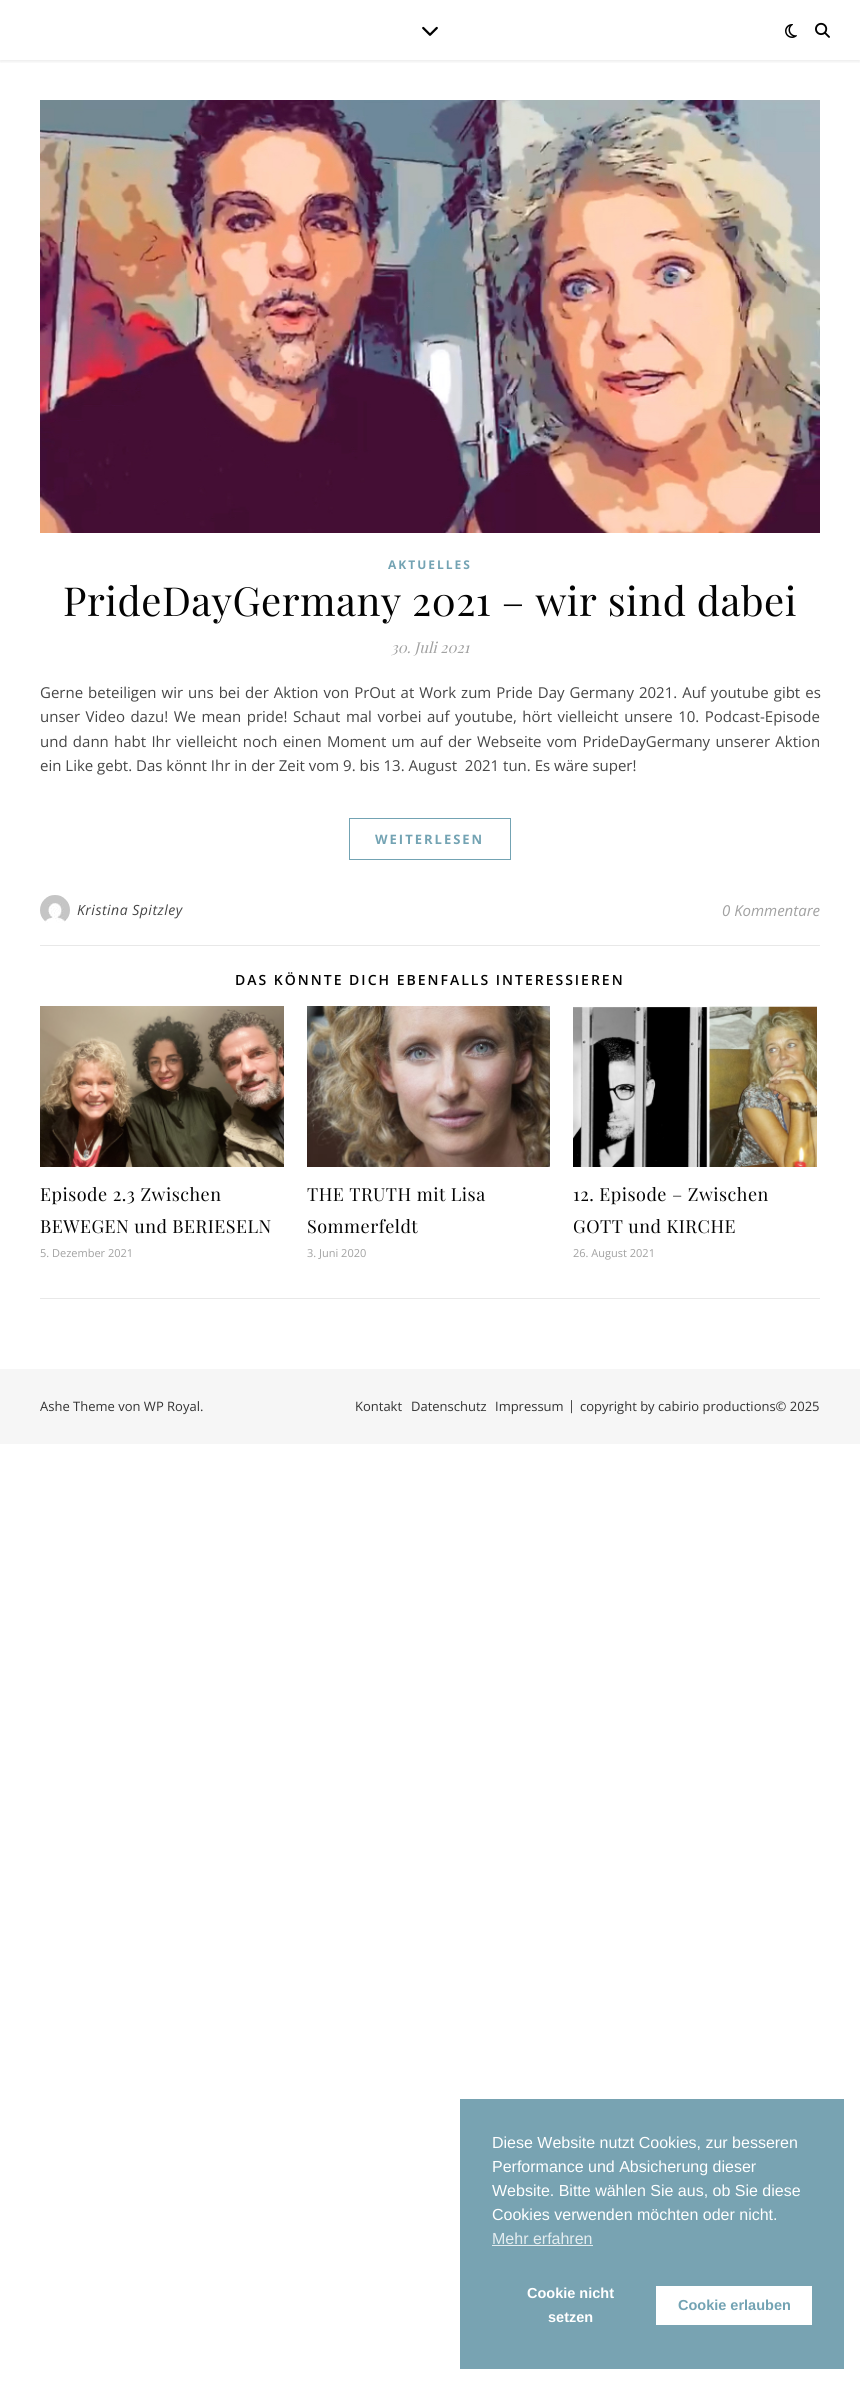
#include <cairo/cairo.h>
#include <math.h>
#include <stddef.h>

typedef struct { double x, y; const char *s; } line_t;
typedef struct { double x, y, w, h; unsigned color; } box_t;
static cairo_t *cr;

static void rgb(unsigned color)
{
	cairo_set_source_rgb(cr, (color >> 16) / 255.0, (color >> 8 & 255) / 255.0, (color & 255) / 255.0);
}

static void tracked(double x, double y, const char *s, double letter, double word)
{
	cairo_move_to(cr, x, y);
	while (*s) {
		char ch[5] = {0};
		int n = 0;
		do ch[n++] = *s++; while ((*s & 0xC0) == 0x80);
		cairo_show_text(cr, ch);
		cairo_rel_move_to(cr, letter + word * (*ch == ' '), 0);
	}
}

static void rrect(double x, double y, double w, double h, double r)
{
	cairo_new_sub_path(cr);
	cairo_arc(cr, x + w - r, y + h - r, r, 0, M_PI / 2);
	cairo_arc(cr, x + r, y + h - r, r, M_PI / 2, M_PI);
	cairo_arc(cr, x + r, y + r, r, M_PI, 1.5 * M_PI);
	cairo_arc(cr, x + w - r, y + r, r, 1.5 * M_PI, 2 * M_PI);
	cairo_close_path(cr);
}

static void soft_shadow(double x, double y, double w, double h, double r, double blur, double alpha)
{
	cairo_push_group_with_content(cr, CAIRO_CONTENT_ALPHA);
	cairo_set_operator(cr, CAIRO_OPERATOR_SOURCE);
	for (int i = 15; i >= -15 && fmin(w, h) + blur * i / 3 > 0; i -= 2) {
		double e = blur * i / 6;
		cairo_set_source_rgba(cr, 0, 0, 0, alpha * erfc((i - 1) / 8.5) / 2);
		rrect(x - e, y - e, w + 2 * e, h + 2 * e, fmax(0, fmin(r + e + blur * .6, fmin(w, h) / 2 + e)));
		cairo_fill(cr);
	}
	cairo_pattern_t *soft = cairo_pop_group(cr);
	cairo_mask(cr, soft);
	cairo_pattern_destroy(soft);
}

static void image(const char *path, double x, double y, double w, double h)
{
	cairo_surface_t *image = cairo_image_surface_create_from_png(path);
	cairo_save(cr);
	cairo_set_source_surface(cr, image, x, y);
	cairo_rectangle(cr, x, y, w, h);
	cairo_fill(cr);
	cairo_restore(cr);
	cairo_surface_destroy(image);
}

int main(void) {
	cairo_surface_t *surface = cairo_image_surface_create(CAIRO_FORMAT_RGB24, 860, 2385);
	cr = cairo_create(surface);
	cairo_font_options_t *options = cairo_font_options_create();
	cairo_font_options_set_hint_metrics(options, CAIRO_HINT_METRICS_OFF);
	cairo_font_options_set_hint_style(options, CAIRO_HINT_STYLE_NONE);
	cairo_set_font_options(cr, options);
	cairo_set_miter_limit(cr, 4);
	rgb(0xffffff);
	cairo_paint(cr);
	cairo_save(cr);
	cairo_rectangle(cr, 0, 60, 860, 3);
	cairo_clip(cr);
	rgb(0x000000);
	soft_shadow(0, 1, 860, 60, 0, 2.5, 0.1);
	cairo_restore(cr);
	image("img/1.png", 422, 26, 16, 10);
	image("img/2.png", 785, 24, 12, 14);
	image("img/3.png", 815, 22, 15, 16);
	image("img/4.png", 40, 100, 780, 433);
	cairo_rectangle(cr, 349.5, 818.5, 161, 41);
	rgb(0x73a3b3);
	cairo_set_line_width(cr, 1);
	cairo_stroke(cr);
	rgb(0xe8e8e8);
	cairo_rectangle(cr, 40, 945, 780, 1);
	cairo_fill(cr);
	image("img/5.png", 40, 895, 30, 28);
	cairo_rectangle(cr, 40, 1298, 780, 1);
	cairo_fill(cr);
	image("img/6.png", 40, 1006, 244, 161);
	image("img/7.png", 307, 1006, 243, 161);
	image("img/8.png", 573, 1006, 244, 161);
	{
		static const box_t items[] = {
			{0, 1369, 860, 75, 0xf6f6f6},
			{460, 2099, 384, 270, 0x78a3b2},
			{492, 2245, 101, 1, 0xe4edf0},
			{656, 2286, 156, 39, 0xffffff},
		};
		for (size_t i = 0; i < sizeof items / sizeof *items; i++) {
			rgb(items[i].color);
			cairo_rectangle(cr, items[i].x, items[i].y, items[i].w, items[i].h);
			cairo_fill(cr);
		}
	}
	cairo_select_font_face(cr, "Open Sans", CAIRO_FONT_SLANT_NORMAL, CAIRO_FONT_WEIGHT_BOLD);
	cairo_set_font_size(cr, 12);
	rgb(0x73a3b3);
	tracked(388, 569, "AKTUELLES", 2, 0);
	cairo_select_font_face(cr, "Playfair Display", CAIRO_FONT_SLANT_NORMAL, CAIRO_FONT_WEIGHT_NORMAL);
	cairo_set_font_size(cr, 40);
	rgb(0x030303);
	tracked(63, 616, "PrideDayGermany 2021 – wir sind dabei", 0.5, 0);
	cairo_select_font_face(cr, "Playfair Display", CAIRO_FONT_SLANT_ITALIC, CAIRO_FONT_WEIGHT_NORMAL);
	cairo_set_font_size(cr, 15);
	rgb(0xa1a1a1);
	cairo_move_to(cr, 391, 653);
	cairo_show_text(cr, "30. Juli 2021");
	cairo_select_font_face(cr, "Open Sans", CAIRO_FONT_SLANT_NORMAL, CAIRO_FONT_WEIGHT_NORMAL);
	rgb(0x464646);
	tracked(40, 698, "Gerne beteiligen wir uns bei der Aktion von PrOut at Work zum Pride Day Germany 2021. Auf youtube gibt es", 0, 1.1);
	tracked(40, 722, "unser Video dazu! We mean pride! Schaut mal vorbei auf youtube, hört vielleicht unsere 10. Podcast-Episode", 0, 1.6);
	tracked(40, 747, "und dann habt Ihr vielleicht noch einen Moment um auf der Webseite vom PrideDayGermany unserer Aktion", 0, 1.4);
	cairo_move_to(cr, 40, 771);
	cairo_show_text(cr, "ein Like gebt. Das könnt Ihr in der Zeit vom 9. bis 13. August  2021 tun. Es wäre super!");
	cairo_select_font_face(cr, "Open Sans", CAIRO_FONT_SLANT_NORMAL, CAIRO_FONT_WEIGHT_BOLD);
	cairo_set_font_size(cr, 13);
	rgb(0x73a3b3);
	tracked(375, 844, "WEITERLESEN", 2, 0);
	cairo_select_font_face(cr, "Open Sans", CAIRO_FONT_SLANT_ITALIC, CAIRO_FONT_WEIGHT_NORMAL);
	cairo_set_font_size(cr, 14);
	rgb(0x464646);
	tracked(77, 915, "Kristina Spitzley", 0.5, 0);
	cairo_set_font_size(cr, 15);
	rgb(0xa1a1a1);
	cairo_move_to(cr, 722, 916);
	cairo_show_text(cr, "0 Kommentare");
	cairo_select_font_face(cr, "Open Sans SemiBold", CAIRO_FONT_SLANT_NORMAL, CAIRO_FONT_WEIGHT_NORMAL);
	cairo_set_font_size(cr, 14);
	rgb(0x030303);
	tracked(235, 985, "DAS KÖNNTE DICH EBENFALLS INTERESSIEREN", 2, 0);
	cairo_select_font_face(cr, "Playfair Display", CAIRO_FONT_SLANT_NORMAL, CAIRO_FONT_WEIGHT_NORMAL);
	cairo_set_font_size(cr, 18);
	tracked(40, 1201, "Episode 2.3 Zwischen", 0.5, 0);
	tracked(40, 1233, "BEWEGEN und BERIESELN", 0.5, 0);
	cairo_select_font_face(cr, "Open Sans", CAIRO_FONT_SLANT_NORMAL, CAIRO_FONT_WEIGHT_NORMAL);
	cairo_set_font_size(cr, 11);
	rgb(0xa1a1a1);
	cairo_move_to(cr, 40, 1257);
	cairo_show_text(cr, "5. Dezember 2021");
	cairo_select_font_face(cr, "Playfair Display", CAIRO_FONT_SLANT_NORMAL, CAIRO_FONT_WEIGHT_NORMAL);
	cairo_set_font_size(cr, 18);
	rgb(0x030303);
	tracked(307, 1201, "THE TRUTH mit Lisa", 0.5, 0);
	tracked(307, 1233, "Sommerfeldt", 0.5, 0);
	cairo_select_font_face(cr, "Open Sans", CAIRO_FONT_SLANT_NORMAL, CAIRO_FONT_WEIGHT_NORMAL);
	cairo_set_font_size(cr, 11);
	rgb(0xa1a1a1);
	cairo_move_to(cr, 307, 1257);
	cairo_show_text(cr, "3. Juni 2020");
	cairo_select_font_face(cr, "Playfair Display", CAIRO_FONT_SLANT_NORMAL, CAIRO_FONT_WEIGHT_NORMAL);
	cairo_set_font_size(cr, 18);
	rgb(0x030303);
	tracked(573, 1201, "12. Episode – Zwischen", 0.5, 0);
	tracked(573, 1233, "GOTT und KIRCHE", 0.5, 0);
	cairo_select_font_face(cr, "Open Sans", CAIRO_FONT_SLANT_NORMAL, CAIRO_FONT_WEIGHT_NORMAL);
	cairo_set_font_size(cr, 11);
	rgb(0xa1a1a1);
	cairo_move_to(cr, 573, 1257);
	cairo_show_text(cr, "26. August 2021");
	cairo_set_font_size(cr, 13);
	rgb(0x333333);
	{
		static const line_t items[] = {
			{40, 1411, "Ashe Theme von WP Royal."},
			{355, 1411, "Kontakt"},
			{411, 1411, "Datenschutz"},
			{495, 1411, "Impressum"},
			{568, 1410, "|"},
			{580, 1411, "copyright by cabirio productions© 2025"},
		};
		for (size_t i = 0; i < sizeof items / sizeof *items; i++) {
			cairo_move_to(cr, items[i].x, items[i].y);
			cairo_show_text(cr, items[i].s);
		}
	}
	cairo_select_font_face(cr, "Liberation Sans", CAIRO_FONT_SLANT_NORMAL, CAIRO_FONT_WEIGHT_NORMAL);
	cairo_set_font_size(cr, 16);
	rgb(0xffffff);
	{
		static const line_t items[] = {
			{492, 2148, "Diese Website nutzt Cookies, zur besseren"},
			{492, 2172, "Performance und Absicherung dieser"},
			{492, 2196, "Website. Bitte wählen Sie aus, ob Sie diese"},
			{492, 2220, "Cookies verwenden möchten oder nicht."},
		};
		for (size_t i = 0; i < sizeof items / sizeof *items; i++) {
			cairo_move_to(cr, items[i].x, items[i].y);
			cairo_show_text(cr, items[i].s);
		}
	}
	rgb(0xe4edf0);
	cairo_move_to(cr, 492, 2244);
	cairo_show_text(cr, "Mehr erfahren");
	cairo_select_font_face(cr, "Liberation Sans", CAIRO_FONT_SLANT_NORMAL, CAIRO_FONT_WEIGHT_BOLD);
	cairo_set_font_size(cr, 14.5);
	rgb(0xffffff);
	cairo_move_to(cr, 527, 2298);
	cairo_show_text(cr, "Cookie nicht");
	cairo_move_to(cr, 548, 2322);
	cairo_show_text(cr, "setzen");
	rgb(0x73a3b3);
	cairo_move_to(cr, 678, 2310);
	cairo_show_text(cr, "Cookie erlauben");
	cairo_surface_write_to_png(surface, "page.png");
	cairo_font_options_destroy(options);
	cairo_destroy(cr);
	cairo_surface_destroy(surface);
	return 0;
}
